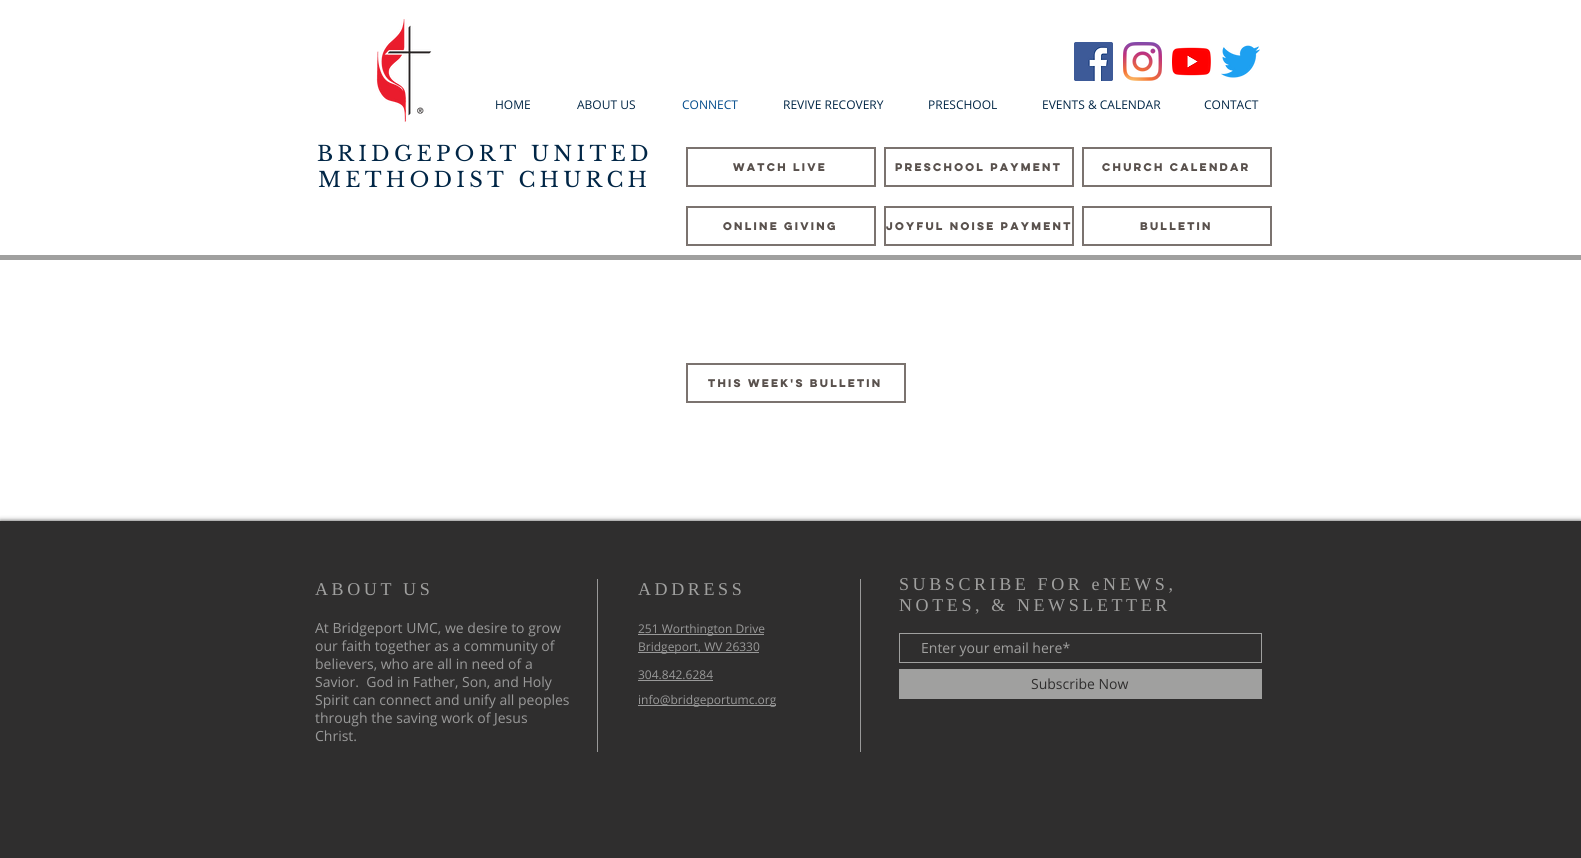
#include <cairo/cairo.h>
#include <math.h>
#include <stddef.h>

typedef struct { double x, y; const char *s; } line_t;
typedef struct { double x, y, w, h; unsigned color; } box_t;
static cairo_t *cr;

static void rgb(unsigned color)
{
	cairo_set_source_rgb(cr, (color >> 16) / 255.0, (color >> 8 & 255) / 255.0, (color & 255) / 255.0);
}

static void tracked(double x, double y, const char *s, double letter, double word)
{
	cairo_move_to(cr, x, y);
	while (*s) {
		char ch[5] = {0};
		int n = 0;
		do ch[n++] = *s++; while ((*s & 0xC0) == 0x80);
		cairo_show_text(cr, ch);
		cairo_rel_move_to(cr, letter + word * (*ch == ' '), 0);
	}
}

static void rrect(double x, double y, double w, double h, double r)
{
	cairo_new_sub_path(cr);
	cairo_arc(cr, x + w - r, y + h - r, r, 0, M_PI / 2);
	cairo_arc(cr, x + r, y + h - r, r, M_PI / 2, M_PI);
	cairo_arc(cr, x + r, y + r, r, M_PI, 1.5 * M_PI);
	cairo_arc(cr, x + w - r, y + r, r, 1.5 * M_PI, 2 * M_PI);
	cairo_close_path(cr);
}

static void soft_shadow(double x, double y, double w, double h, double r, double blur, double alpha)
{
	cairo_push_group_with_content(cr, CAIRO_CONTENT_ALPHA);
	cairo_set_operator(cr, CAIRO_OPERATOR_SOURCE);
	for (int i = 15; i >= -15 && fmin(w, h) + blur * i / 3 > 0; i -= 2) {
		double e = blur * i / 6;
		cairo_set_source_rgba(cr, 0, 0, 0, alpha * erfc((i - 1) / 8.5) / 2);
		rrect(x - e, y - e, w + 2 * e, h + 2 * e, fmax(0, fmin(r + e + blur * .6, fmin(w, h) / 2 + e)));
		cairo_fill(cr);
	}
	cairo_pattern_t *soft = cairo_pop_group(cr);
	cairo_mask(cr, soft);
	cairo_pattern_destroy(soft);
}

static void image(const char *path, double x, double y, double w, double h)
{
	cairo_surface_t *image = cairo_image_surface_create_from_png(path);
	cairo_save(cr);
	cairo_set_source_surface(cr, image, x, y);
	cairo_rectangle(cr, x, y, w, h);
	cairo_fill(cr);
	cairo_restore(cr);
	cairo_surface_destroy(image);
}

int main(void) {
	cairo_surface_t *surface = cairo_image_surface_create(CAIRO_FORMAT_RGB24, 1581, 858);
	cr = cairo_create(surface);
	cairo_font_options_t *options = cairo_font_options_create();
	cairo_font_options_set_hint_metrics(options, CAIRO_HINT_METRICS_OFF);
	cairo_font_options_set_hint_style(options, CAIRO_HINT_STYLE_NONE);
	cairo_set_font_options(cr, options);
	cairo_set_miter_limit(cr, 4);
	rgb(0xffffff);
	cairo_paint(cr);
	image("img/1.png", 376, 19, 56, 103);
	image("img/2.png", 1074, 42, 39, 39);
	image("img/3.png", 1123, 42, 39, 39);
	image("img/4.png", 1172, 47, 39, 29);
	image("img/5.png", 1221, 45, 39, 33);
	cairo_rectangle(cr, 687, 148, 188, 38);
	rgb(0x7b736f);
	cairo_stroke(cr);
	cairo_rectangle(cr, 885, 148, 188, 38);
	cairo_stroke(cr);
	cairo_rectangle(cr, 1083, 148, 188, 38);
	cairo_stroke(cr);
	cairo_rectangle(cr, 687, 207, 188, 38);
	cairo_stroke(cr);
	cairo_rectangle(cr, 885, 207, 188, 38);
	cairo_stroke(cr);
	cairo_rectangle(cr, 1083, 207, 188, 38);
	cairo_stroke(cr);
	rgb(0xa0a09f);
	cairo_rectangle(cr, 0, 255, 1581, 5);
	cairo_fill(cr);
	cairo_rectangle(cr, 687, 364, 218, 38);
	rgb(0x7b736f);
	cairo_stroke(cr);
	rgb(0x000000);
	soft_shadow(0, 521, 1581, 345, 0, 2.5, 0.7);
	{
		static const box_t items[] = {
			{0, 521, 1581, 337, 0x2f2e2e},
			{597, 579, 1, 173, 0x999999},
			{860, 579, 1, 173, 0x999999},
		};
		for (size_t i = 0; i < sizeof items / sizeof *items; i++) {
			rgb(items[i].color);
			cairo_rectangle(cr, items[i].x, items[i].y, items[i].w, items[i].h);
			cairo_fill(cr);
		}
	}
	cairo_rectangle(cr, 899.5, 633.5, 362, 29);
	rgb(0xa0a09f);
	cairo_set_line_width(cr, 1);
	cairo_stroke(cr);
	{
		static const box_t items[] = {
			{899, 669, 363, 30, 0xa0a09f},
			{638, 634, 126, 1, 0x999999},
			{638, 652, 121, 1, 0x999999},
			{638, 680, 75, 1, 0x999999},
			{638, 705, 138, 1, 0x999999},
		};
		for (size_t i = 0; i < sizeof items / sizeof *items; i++) {
			rgb(items[i].color);
			cairo_rectangle(cr, items[i].x, items[i].y, items[i].w, items[i].h);
			cairo_fill(cr);
		}
	}
	cairo_select_font_face(cr, "Open Sans", CAIRO_FONT_SLANT_NORMAL, CAIRO_FONT_WEIGHT_NORMAL);
	cairo_set_font_size(cr, 12);
	rgb(0x012646);
	cairo_move_to(cr, 495, 109);
	cairo_show_text(cr, "HOME");
	cairo_move_to(cr, 577, 109);
	cairo_show_text(cr, "ABOUT US");
	rgb(0x034c8c);
	cairo_move_to(cr, 682, 109);
	cairo_show_text(cr, "CONNECT");
	rgb(0x012646);
	{
		static const line_t items[] = {
			{783, 109, "REVIVE RECOVERY"},
			{928, 109, "PRESCHOOL"},
			{1042, 109, "EVENTS & CALENDAR"},
			{1204, 109, "CONTACT"},
		};
		for (size_t i = 0; i < sizeof items / sizeof *items; i++) {
			cairo_move_to(cr, items[i].x, items[i].y);
			cairo_show_text(cr, items[i].s);
		}
	}
	cairo_select_font_face(cr, "Libre Baskerville", CAIRO_FONT_SLANT_NORMAL, CAIRO_FONT_WEIGHT_NORMAL);
	cairo_set_font_size(cr, 21);
	tracked(317, 161, "BRIDGEPORT UNITED", 4.25, 0);
	tracked(318, 187, "METHODIST CHURCH", 4.25, 0);
	cairo_select_font_face(cr, "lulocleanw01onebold", CAIRO_FONT_SLANT_NORMAL, CAIRO_FONT_WEIGHT_BOLD);
	cairo_set_font_size(cr, 10);
	rgb(0x59514d);
	{
		static const line_t items[] = {
			{733, 171, "WATCH LIVE"},
			{895, 171, "PreSchool Payment"},
			{1102, 171, "CHURCH CALENDAR"},
			{723, 230, "Online Giving"},
			{886, 230, "Joyful Noise Payment"},
			{1140, 230, "Bulletin"},
			{708, 387, "This Week's Bulletin"},
		};
		for (size_t i = 0; i < sizeof items / sizeof *items; i++) {
			cairo_move_to(cr, items[i].x, items[i].y);
			cairo_show_text(cr, items[i].s);
		}
	}
	cairo_select_font_face(cr, "Liberation Serif", CAIRO_FONT_SLANT_NORMAL, CAIRO_FONT_WEIGHT_NORMAL);
	cairo_set_font_size(cr, 18);
	rgb(0xa0a09f);
	{
		static const line_t items[] = {
			{315, 595, "ABOUT US"},
			{638, 595, "ADDRESS"},
			{899, 590, "SUBSCRIBE FOR eNEWS,"},
			{899, 611, "NOTES, & NEWSLETTER"},
		};
		for (size_t i = 0; i < sizeof items / sizeof *items; i++) {
			tracked(items[i].x, items[i].y, items[i].s, 3.6, 0);
		}
	}
	cairo_select_font_face(cr, "Open Sans", CAIRO_FONT_SLANT_NORMAL, CAIRO_FONT_WEIGHT_NORMAL);
	cairo_set_font_size(cr, 14);
	cairo_move_to(cr, 921, 653);
	cairo_show_text(cr, "Enter your email here*");
	rgb(0x2f2e2e);
	cairo_move_to(cr, 1031, 689);
	cairo_show_text(cr, "Subscribe Now");
	rgb(0x999999);
	{
		static const line_t items[] = {
			{315, 633, "At Bridgeport UMC, we desire to grow"},
			{315, 651, "our faith together as a community of"},
			{315, 669, "believers, who are all in need of a"},
			{315, 687, "Savior.  God in Father, Son, and Holy"},
			{315, 705, "Spirit can connect and unify all peoples"},
			{315, 723, "through the saving work of Jesus"},
			{315, 741, "Christ."},
		};
		for (size_t i = 0; i < sizeof items / sizeof *items; i++) {
			cairo_move_to(cr, items[i].x, items[i].y);
			cairo_show_text(cr, items[i].s);
		}
	}
	cairo_set_font_size(cr, 12);
	{
		static const line_t items[] = {
			{638, 633, "251 Worthington Drive"},
			{638, 651, "Bridgeport, WV 26330"},
			{638, 679, "304.842.6284"},
			{638, 704, "info@bridgeportumc.org"},
		};
		for (size_t i = 0; i < sizeof items / sizeof *items; i++) {
			cairo_move_to(cr, items[i].x, items[i].y);
			cairo_show_text(cr, items[i].s);
		}
	}
	cairo_surface_write_to_png(surface, "page.png");
	cairo_font_options_destroy(options);
	cairo_destroy(cr);
	cairo_surface_destroy(surface);
	return 0;
}
